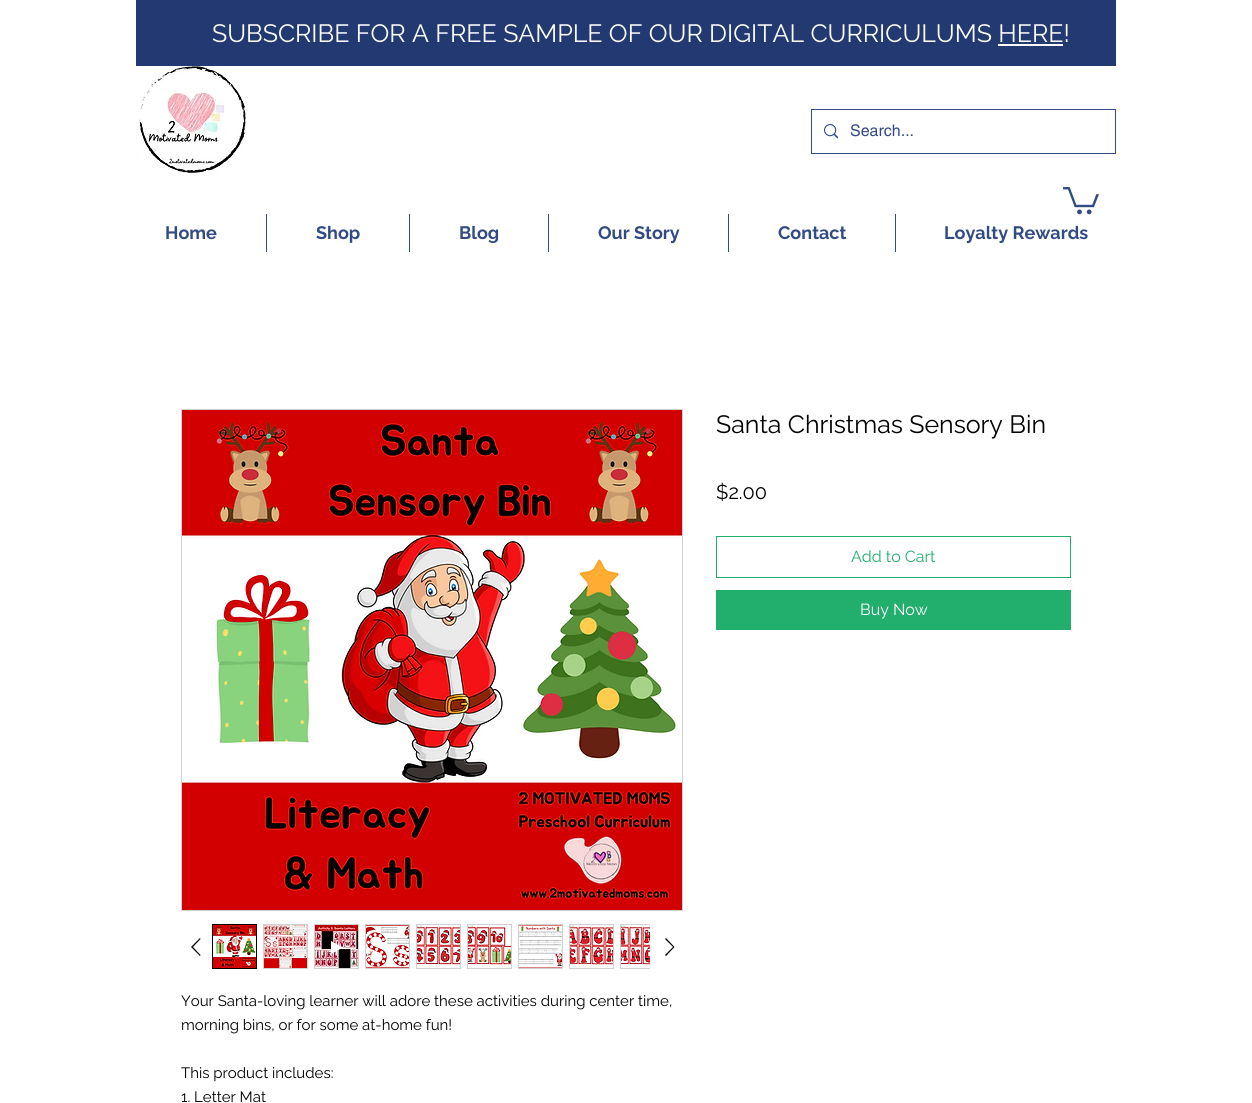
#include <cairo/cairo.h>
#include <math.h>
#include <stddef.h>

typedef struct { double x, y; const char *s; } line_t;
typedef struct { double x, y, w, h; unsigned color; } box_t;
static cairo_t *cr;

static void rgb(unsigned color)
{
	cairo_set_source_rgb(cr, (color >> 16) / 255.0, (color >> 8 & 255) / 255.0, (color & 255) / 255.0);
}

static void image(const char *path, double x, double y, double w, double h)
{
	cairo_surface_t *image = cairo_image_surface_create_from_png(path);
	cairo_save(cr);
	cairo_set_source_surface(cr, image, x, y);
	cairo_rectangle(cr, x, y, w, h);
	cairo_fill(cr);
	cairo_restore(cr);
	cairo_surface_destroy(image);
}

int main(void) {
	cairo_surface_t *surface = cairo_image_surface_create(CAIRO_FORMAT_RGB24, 1252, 1103);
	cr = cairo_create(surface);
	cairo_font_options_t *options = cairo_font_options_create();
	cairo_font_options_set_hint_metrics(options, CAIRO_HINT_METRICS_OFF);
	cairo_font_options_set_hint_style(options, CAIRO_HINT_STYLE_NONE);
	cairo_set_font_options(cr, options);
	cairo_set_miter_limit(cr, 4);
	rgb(0xffffff);
	cairo_paint(cr);
	rgb(0x223a71);
	cairo_rectangle(cr, 136, 0, 980, 66);
	cairo_fill(cr);
	rgb(0xffffff);
	cairo_rectangle(cr, 998, 44, 65, 2);
	cairo_fill(cr);
	image("img/1.png", 136, 66, 112, 107);
	cairo_rectangle(cr, 811.5, 109.5, 304, 44);
	rgb(0x324b85);
	cairo_set_line_width(cr, 1);
	cairo_stroke(cr);
	image("img/2.png", 824, 124, 14, 15);
	image("img/3.png", 1063, 187, 36, 28);
	{
		static const box_t items[] = {
			{266, 214, 1, 38, 0x324b85},
			{409, 214, 1, 38, 0x324b85},
			{548, 214, 1, 38, 0x324b85},
			{728, 214, 1, 38, 0x324b85},
			{895, 214, 1, 38, 0x324b85},
		};
		for (size_t i = 0; i < sizeof items / sizeof *items; i++) {
			rgb(items[i].color);
			cairo_rectangle(cr, items[i].x, items[i].y, items[i].w, items[i].h);
			cairo_fill(cr);
		}
	}
	cairo_rectangle(cr, 716.5, 536.5, 354, 41);
	rgb(0x22ae6d);
	cairo_stroke(cr);
	cairo_rectangle(cr, 716, 590, 355, 40);
	cairo_fill(cr);
	cairo_rectangle(cr, 181.5, 409.5, 501, 501);
	rgb(0xd1d1d1);
	cairo_stroke(cr);
	image("img/4.png", 182, 410, 500, 500);
	rgb(0x000000);
	cairo_set_fill_rule(cr, CAIRO_FILL_RULE_EVEN_ODD);
	cairo_new_path(cr);
	cairo_move_to(cr, 200, 938);
	cairo_line_to(cr, 200.5, 939);
	cairo_line_to(cr, 193, 947);
	cairo_line_to(cr, 200.5, 955);
	cairo_line_to(cr, 200, 956);
	cairo_line_to(cr, 191, 947);
	cairo_close_path(cr);
	cairo_fill(cr);
	cairo_rectangle(cr, 212.5, 924.5, 44, 44);
	cairo_stroke(cr);
	image("img/5.png", 213, 925, 43, 43);
	cairo_rectangle(cr, 263.5, 924.5, 44, 44);
	rgb(0xd1d1d1);
	cairo_stroke(cr);
	image("img/6.png", 264, 925, 43, 43);
	cairo_rectangle(cr, 314.5, 924.5, 44, 44);
	cairo_stroke(cr);
	image("img/7.png", 315, 925, 43, 43);
	rgb(0xffffff);
	cairo_set_fill_rule(cr, CAIRO_FILL_RULE_WINDING);
	cairo_new_path(cr);
	cairo_move_to(cr, 331, 941);
	cairo_line_to(cr, 331, 954);
	cairo_line_to(cr, 343, 947.5);
	cairo_close_path(cr);
	cairo_fill(cr);
	cairo_rectangle(cr, 365.5, 924.5, 44, 44);
	rgb(0xd1d1d1);
	cairo_stroke(cr);
	image("img/8.png", 366, 925, 43, 43);
	cairo_rectangle(cr, 416.5, 924.5, 44, 44);
	cairo_stroke(cr);
	image("img/9.png", 417, 925, 43, 40);
	cairo_rectangle(cr, 467.5, 924.5, 44, 44);
	cairo_stroke(cr);
	image("img/10.png", 468, 925, 43, 40);
	cairo_rectangle(cr, 518.5, 924.5, 44, 44);
	cairo_stroke(cr);
	image("img/11.png", 519, 925, 43, 43);
	cairo_rectangle(cr, 569.5, 924.5, 44, 44);
	cairo_stroke(cr);
	image("img/12.png", 570, 925, 43, 40);
	cairo_save(cr);
	cairo_rectangle(cr, 208, 920, 442, 53);
	cairo_clip(cr);
	cairo_rectangle(cr, 620.5, 924.5, 44, 44);
	cairo_stroke(cr);
	cairo_restore(cr);
	image("img/13.png", 621, 925, 29, 40);
	rgb(0x000000);
	cairo_set_fill_rule(cr, CAIRO_FILL_RULE_EVEN_ODD);
	cairo_new_path(cr);
	cairo_move_to(cr, 666, 938);
	cairo_line_to(cr, 674.5, 947);
	cairo_line_to(cr, 666, 956);
	cairo_line_to(cr, 665, 955);
	cairo_line_to(cr, 673, 947);
	cairo_line_to(cr, 665, 939);
	cairo_close_path(cr);
	cairo_fill(cr);
	cairo_select_font_face(cr, "Raleway", CAIRO_FONT_SLANT_NORMAL, CAIRO_FONT_WEIGHT_NORMAL);
	cairo_set_font_size(cr, 25);
	rgb(0xffffff);
	cairo_move_to(cr, 212, 42);
	cairo_show_text(cr, "SUBSCRIBE FOR A FREE SAMPLE OF OUR DIGITAL CURRICULUMS HERE!");
	cairo_select_font_face(cr, "helvetica", CAIRO_FONT_SLANT_NORMAL, CAIRO_FONT_WEIGHT_NORMAL);
	cairo_set_font_size(cr, 16);
	rgb(0x324b85);
	cairo_move_to(cr, 850, 136);
	cairo_show_text(cr, "Search...");
	cairo_select_font_face(cr, "Raleway", CAIRO_FONT_SLANT_NORMAL, CAIRO_FONT_WEIGHT_BOLD);
	cairo_set_font_size(cr, 18);
	{
		static const line_t items[] = {
			{165, 239, "Home"},
			{316, 239, "Shop"},
			{459, 239, "Blog"},
			{598, 239, "Our Story"},
			{778, 239, "Contact"},
			{944, 239, "Loyalty Rewards"},
		};
		for (size_t i = 0; i < sizeof items / sizeof *items; i++) {
			cairo_move_to(cr, items[i].x, items[i].y);
			cairo_show_text(cr, items[i].s);
		}
	}
	cairo_select_font_face(cr, "Raleway", CAIRO_FONT_SLANT_NORMAL, CAIRO_FONT_WEIGHT_NORMAL);
	cairo_set_font_size(cr, 25);
	rgb(0x000000);
	cairo_move_to(cr, 716, 433);
	cairo_show_text(cr, "Santa Christmas Sensory Bin");
	cairo_set_font_size(cr, 20);
	cairo_move_to(cr, 716, 499);
	cairo_show_text(cr, "$2.00");
	cairo_set_font_size(cr, 16);
	rgb(0x22ae6d);
	cairo_move_to(cr, 851, 562);
	cairo_show_text(cr, "Add to Cart");
	rgb(0xffffff);
	cairo_move_to(cr, 860, 615);
	cairo_show_text(cr, "Buy Now");
	cairo_set_font_size(cr, 15);
	rgb(0x000000);
	{
		static const line_t items[] = {
			{181, 1006, "Your Santa-loving learner will adore these activities during center time,"},
			{181, 1030, "morning bins, or for some at-home fun!"},
			{181, 1078, "This product includes:"},
			{181, 1102, "1. Letter Mat"},
		};
		for (size_t i = 0; i < sizeof items / sizeof *items; i++) {
			cairo_move_to(cr, items[i].x, items[i].y);
			cairo_show_text(cr, items[i].s);
		}
	}
	cairo_surface_write_to_png(surface, "page.png");
	cairo_font_options_destroy(options);
	cairo_destroy(cr);
	cairo_surface_destroy(surface);
	return 0;
}
